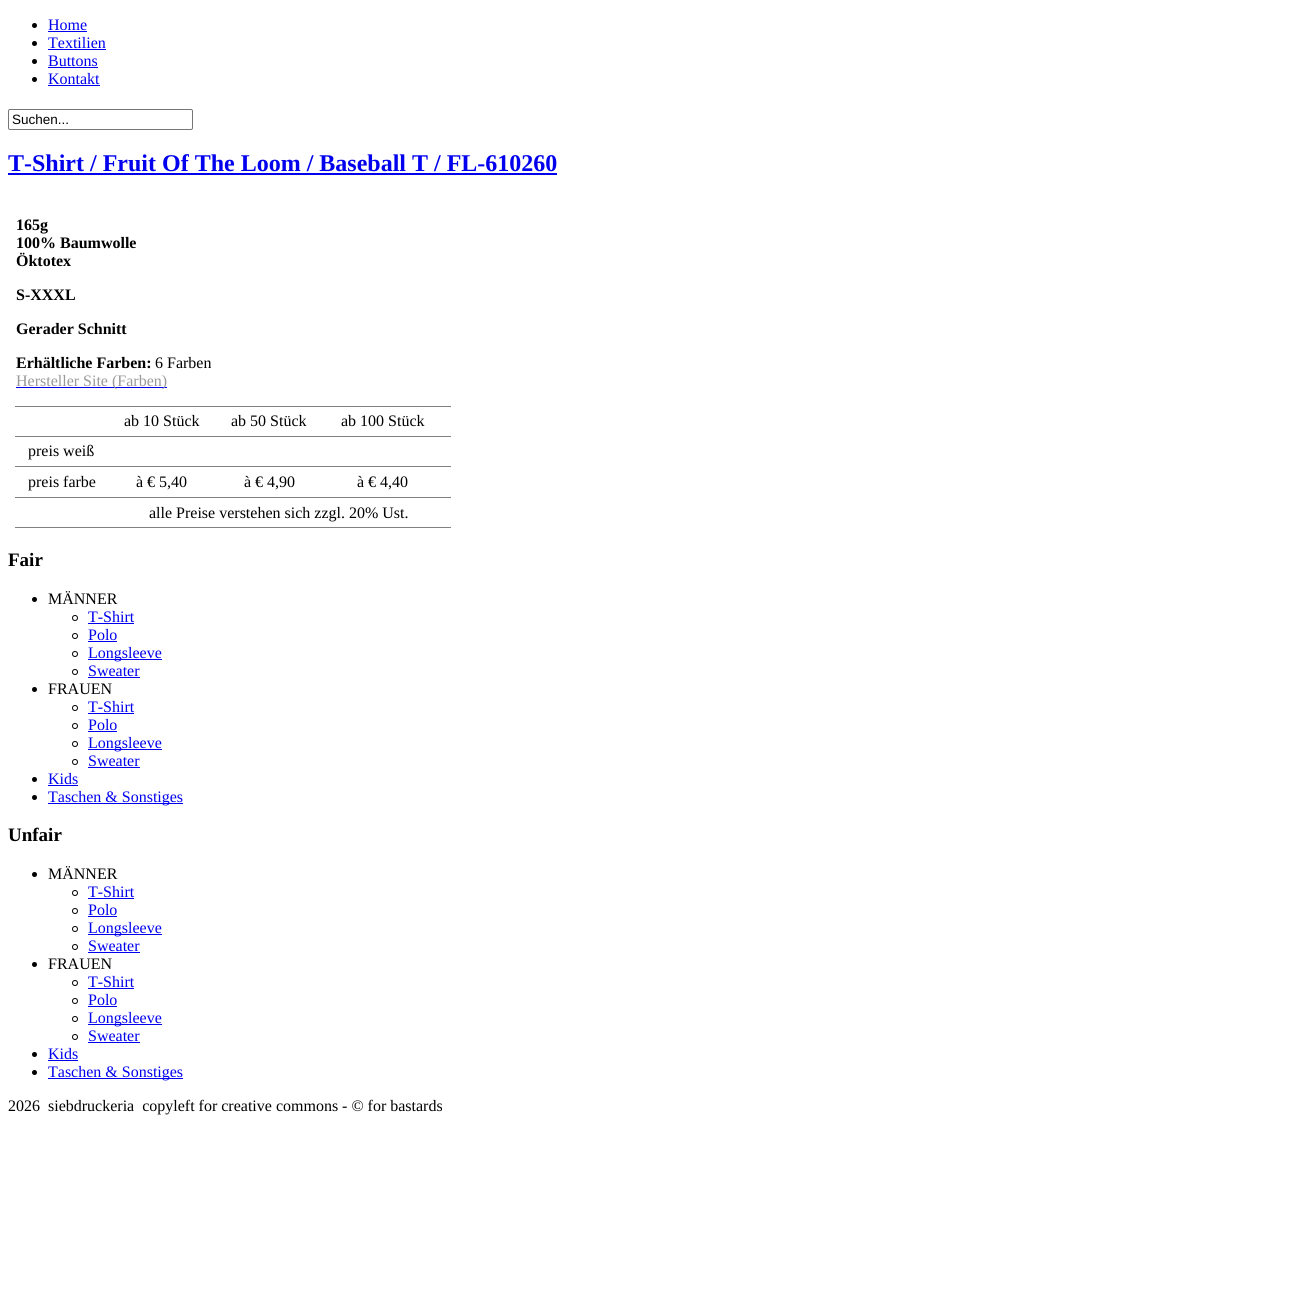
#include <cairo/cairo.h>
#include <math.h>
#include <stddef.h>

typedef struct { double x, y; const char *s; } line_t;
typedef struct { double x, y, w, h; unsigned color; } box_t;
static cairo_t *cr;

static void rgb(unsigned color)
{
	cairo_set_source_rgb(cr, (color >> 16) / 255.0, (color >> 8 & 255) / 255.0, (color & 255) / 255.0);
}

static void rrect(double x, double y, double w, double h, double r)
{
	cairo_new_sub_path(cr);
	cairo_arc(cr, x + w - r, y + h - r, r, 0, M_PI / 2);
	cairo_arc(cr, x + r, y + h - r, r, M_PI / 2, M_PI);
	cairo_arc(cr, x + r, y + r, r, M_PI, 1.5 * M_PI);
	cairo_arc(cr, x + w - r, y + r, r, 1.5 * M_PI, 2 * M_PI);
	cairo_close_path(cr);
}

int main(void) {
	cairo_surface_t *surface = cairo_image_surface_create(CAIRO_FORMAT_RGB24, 1304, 1302);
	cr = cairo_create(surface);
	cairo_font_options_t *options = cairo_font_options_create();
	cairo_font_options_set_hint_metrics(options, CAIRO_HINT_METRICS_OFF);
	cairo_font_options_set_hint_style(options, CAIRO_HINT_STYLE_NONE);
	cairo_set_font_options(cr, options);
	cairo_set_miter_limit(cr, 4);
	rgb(0xffffff);
	cairo_paint(cr);
	rgb(0x000000);
	cairo_arc(cr, 34.5, 25.5, 2.5, 0, 2 * M_PI);
	cairo_fill(cr);
	rgb(0x0000ee);
	cairo_rectangle(cr, 48, 31, 39, 1);
	cairo_fill(cr);
	rgb(0x000000);
	cairo_arc(cr, 34.5, 43.5, 2.5, 0, 2 * M_PI);
	cairo_fill(cr);
	rgb(0x0000ee);
	cairo_rectangle(cr, 48, 49, 58, 1);
	cairo_fill(cr);
	rgb(0x000000);
	cairo_arc(cr, 34.5, 61.5, 2.5, 0, 2 * M_PI);
	cairo_fill(cr);
	rgb(0x0000ee);
	cairo_rectangle(cr, 48, 67, 50, 1);
	cairo_fill(cr);
	rgb(0x000000);
	cairo_arc(cr, 34.5, 79.5, 2.5, 0, 2 * M_PI);
	cairo_fill(cr);
	rgb(0x0000ee);
	cairo_rectangle(cr, 48, 85, 52, 1);
	cairo_fill(cr);
	rrect(8.5, 109.5, 184, 20, 1.5);
	rgb(0x767676);
	cairo_set_line_width(cr, 1);
	cairo_stroke(cr);
	{
		static const box_t items[] = {
			{8, 173, 549, 2, 0x0000ee},
			{16, 387, 151, 1, 0x0000ee},
			{15, 406, 436, 1, 0x808080},
			{15, 436, 436, 1, 0x808080},
			{15, 466, 436, 1, 0x808080},
			{15, 497, 436, 1, 0x808080},
			{15, 527, 436, 1, 0x808080},
		};
		for (size_t i = 0; i < sizeof items / sizeof *items; i++) {
			rgb(items[i].color);
			cairo_rectangle(cr, items[i].x, items[i].y, items[i].w, items[i].h);
			cairo_fill(cr);
		}
	}
	rgb(0x000000);
	cairo_arc(cr, 34.5, 599.5, 2.5, 0, 2 * M_PI);
	cairo_fill(cr);
	cairo_arc(cr, 75, 618, 2.5, 0, 2 * M_PI);
	cairo_stroke(cr);
	rgb(0x0000ee);
	cairo_rectangle(cr, 88, 623, 46, 1);
	cairo_fill(cr);
	cairo_arc(cr, 75, 636, 2.5, 0, 2 * M_PI);
	rgb(0x000000);
	cairo_stroke(cr);
	rgb(0x0000ee);
	cairo_rectangle(cr, 88, 641, 29, 1);
	cairo_fill(cr);
	cairo_arc(cr, 75, 654, 2.5, 0, 2 * M_PI);
	rgb(0x000000);
	cairo_stroke(cr);
	rgb(0x0000ee);
	cairo_rectangle(cr, 88, 659, 74, 1);
	cairo_fill(cr);
	cairo_arc(cr, 75, 672, 2.5, 0, 2 * M_PI);
	rgb(0x000000);
	cairo_stroke(cr);
	rgb(0x0000ee);
	cairo_rectangle(cr, 88, 677, 52, 1);
	cairo_fill(cr);
	rgb(0x000000);
	cairo_arc(cr, 34.5, 689.5, 2.5, 0, 2 * M_PI);
	cairo_fill(cr);
	cairo_arc(cr, 75, 708, 2.5, 0, 2 * M_PI);
	cairo_stroke(cr);
	rgb(0x0000ee);
	cairo_rectangle(cr, 88, 713, 46, 1);
	cairo_fill(cr);
	cairo_arc(cr, 75, 726, 2.5, 0, 2 * M_PI);
	rgb(0x000000);
	cairo_stroke(cr);
	rgb(0x0000ee);
	cairo_rectangle(cr, 88, 731, 29, 1);
	cairo_fill(cr);
	cairo_arc(cr, 75, 744, 2.5, 0, 2 * M_PI);
	rgb(0x000000);
	cairo_stroke(cr);
	rgb(0x0000ee);
	cairo_rectangle(cr, 88, 749, 74, 1);
	cairo_fill(cr);
	cairo_arc(cr, 75, 762, 2.5, 0, 2 * M_PI);
	rgb(0x000000);
	cairo_stroke(cr);
	rgb(0x0000ee);
	cairo_rectangle(cr, 88, 767, 52, 1);
	cairo_fill(cr);
	rgb(0x000000);
	cairo_arc(cr, 34.5, 779.5, 2.5, 0, 2 * M_PI);
	cairo_fill(cr);
	rgb(0x0000ee);
	cairo_rectangle(cr, 48, 785, 30, 1);
	cairo_fill(cr);
	rgb(0x000000);
	cairo_arc(cr, 34.5, 797.5, 2.5, 0, 2 * M_PI);
	cairo_fill(cr);
	rgb(0x0000ee);
	cairo_rectangle(cr, 48, 803, 135, 1);
	cairo_fill(cr);
	rgb(0x000000);
	cairo_arc(cr, 34.5, 874.5, 2.5, 0, 2 * M_PI);
	cairo_fill(cr);
	cairo_arc(cr, 75, 893, 2.5, 0, 2 * M_PI);
	cairo_stroke(cr);
	rgb(0x0000ee);
	cairo_rectangle(cr, 88, 898, 46, 1);
	cairo_fill(cr);
	cairo_arc(cr, 75, 911, 2.5, 0, 2 * M_PI);
	rgb(0x000000);
	cairo_stroke(cr);
	rgb(0x0000ee);
	cairo_rectangle(cr, 88, 916, 29, 1);
	cairo_fill(cr);
	cairo_arc(cr, 75, 929, 2.5, 0, 2 * M_PI);
	rgb(0x000000);
	cairo_stroke(cr);
	rgb(0x0000ee);
	cairo_rectangle(cr, 88, 934, 74, 1);
	cairo_fill(cr);
	cairo_arc(cr, 75, 947, 2.5, 0, 2 * M_PI);
	rgb(0x000000);
	cairo_stroke(cr);
	rgb(0x0000ee);
	cairo_rectangle(cr, 88, 952, 52, 1);
	cairo_fill(cr);
	rgb(0x000000);
	cairo_arc(cr, 34.5, 964.5, 2.5, 0, 2 * M_PI);
	cairo_fill(cr);
	cairo_arc(cr, 75, 983, 2.5, 0, 2 * M_PI);
	cairo_stroke(cr);
	rgb(0x0000ee);
	cairo_rectangle(cr, 88, 988, 46, 1);
	cairo_fill(cr);
	cairo_arc(cr, 75, 1001, 2.5, 0, 2 * M_PI);
	rgb(0x000000);
	cairo_stroke(cr);
	rgb(0x0000ee);
	cairo_rectangle(cr, 88, 1006, 29, 1);
	cairo_fill(cr);
	cairo_arc(cr, 75, 1019, 2.5, 0, 2 * M_PI);
	rgb(0x000000);
	cairo_stroke(cr);
	rgb(0x0000ee);
	cairo_rectangle(cr, 88, 1024, 74, 1);
	cairo_fill(cr);
	cairo_arc(cr, 75, 1037, 2.5, 0, 2 * M_PI);
	rgb(0x000000);
	cairo_stroke(cr);
	rgb(0x0000ee);
	cairo_rectangle(cr, 88, 1042, 52, 1);
	cairo_fill(cr);
	rgb(0x000000);
	cairo_arc(cr, 34.5, 1054.5, 2.5, 0, 2 * M_PI);
	cairo_fill(cr);
	rgb(0x0000ee);
	cairo_rectangle(cr, 48, 1060, 30, 1);
	cairo_fill(cr);
	rgb(0x000000);
	cairo_arc(cr, 34.5, 1072.5, 2.5, 0, 2 * M_PI);
	cairo_fill(cr);
	rgb(0x0000ee);
	cairo_rectangle(cr, 48, 1078, 135, 1);
	cairo_fill(cr);
	cairo_select_font_face(cr, "Liberation Serif", CAIRO_FONT_SLANT_NORMAL, CAIRO_FONT_WEIGHT_NORMAL);
	cairo_set_font_size(cr, 16);
	{
		static const line_t items[] = {
			{48, 30, "Home"},
			{48, 48, "Textilien"},
			{48, 66, "Buttons"},
			{48, 84, "Kontakt"},
		};
		for (size_t i = 0; i < sizeof items / sizeof *items; i++) {
			cairo_move_to(cr, items[i].x, items[i].y);
			cairo_show_text(cr, items[i].s);
		}
	}
	cairo_select_font_face(cr, "Liberation Sans", CAIRO_FONT_SLANT_NORMAL, CAIRO_FONT_WEIGHT_NORMAL);
	cairo_set_font_size(cr, 13.5);
	rgb(0x000000);
	cairo_move_to(cr, 12, 124);
	cairo_show_text(cr, "Suchen...");
	cairo_select_font_face(cr, "Liberation Serif", CAIRO_FONT_SLANT_NORMAL, CAIRO_FONT_WEIGHT_BOLD);
	cairo_set_font_size(cr, 24);
	rgb(0x0000ee);
	cairo_move_to(cr, 8, 171);
	cairo_show_text(cr, "T-Shirt / Fruit Of The Loom / Baseball T / FL-610260");
	cairo_set_font_size(cr, 16);
	rgb(0x000000);
	{
		static const line_t items[] = {
			{16, 230, "165g"},
			{16, 248, "100% Baumwolle"},
			{16, 266, "Öktotex"},
			{16, 300, "S-XXXL"},
			{16, 334, "Gerader Schnitt"},
			{16, 368, "Erhältliche Farben:"},
		};
		for (size_t i = 0; i < sizeof items / sizeof *items; i++) {
			cairo_move_to(cr, items[i].x, items[i].y);
			cairo_show_text(cr, items[i].s);
		}
	}
	cairo_select_font_face(cr, "Liberation Serif", CAIRO_FONT_SLANT_NORMAL, CAIRO_FONT_WEIGHT_NORMAL);
	cairo_move_to(cr, 155, 368);
	cairo_show_text(cr, "6 Farben");
	rgb(0x999999);
	cairo_move_to(cr, 16, 386);
	cairo_show_text(cr, "Hersteller Site (Farben)");
	rgb(0x000000);
	{
		static const line_t items[] = {
			{124, 426, "ab 10 Stück"},
			{231, 426, "ab 50 Stück"},
			{341, 426, "ab 100 Stück"},
			{28, 456, "preis weiß"},
			{28, 487, "preis farbe"},
			{136, 487, "à € 5,40"},
			{244, 487, "à € 4,90"},
			{357, 487, "à € 4,40"},
			{149, 518, "alle Preise verstehen sich zzgl. 20% Ust."},
		};
		for (size_t i = 0; i < sizeof items / sizeof *items; i++) {
			cairo_move_to(cr, items[i].x, items[i].y);
			cairo_show_text(cr, items[i].s);
		}
	}
	cairo_select_font_face(cr, "Liberation Serif", CAIRO_FONT_SLANT_NORMAL, CAIRO_FONT_WEIGHT_BOLD);
	cairo_set_font_size(cr, 19);
	cairo_move_to(cr, 8, 566);
	cairo_show_text(cr, "Fair");
	cairo_select_font_face(cr, "Liberation Serif", CAIRO_FONT_SLANT_NORMAL, CAIRO_FONT_WEIGHT_NORMAL);
	cairo_set_font_size(cr, 16);
	cairo_move_to(cr, 48, 604);
	cairo_show_text(cr, "MÄNNER");
	rgb(0x0000ee);
	{
		static const line_t items[] = {
			{88, 622, "T-Shirt"},
			{88, 640, "Polo"},
			{88, 658, "Longsleeve"},
			{88, 676, "Sweater"},
		};
		for (size_t i = 0; i < sizeof items / sizeof *items; i++) {
			cairo_move_to(cr, items[i].x, items[i].y);
			cairo_show_text(cr, items[i].s);
		}
	}
	rgb(0x000000);
	cairo_move_to(cr, 48, 694);
	cairo_show_text(cr, "FRAUEN");
	rgb(0x0000ee);
	{
		static const line_t items[] = {
			{88, 712, "T-Shirt"},
			{88, 730, "Polo"},
			{88, 748, "Longsleeve"},
			{88, 766, "Sweater"},
			{48, 784, "Kids"},
			{48, 802, "Taschen & Sonstiges"},
		};
		for (size_t i = 0; i < sizeof items / sizeof *items; i++) {
			cairo_move_to(cr, items[i].x, items[i].y);
			cairo_show_text(cr, items[i].s);
		}
	}
	cairo_select_font_face(cr, "Liberation Serif", CAIRO_FONT_SLANT_NORMAL, CAIRO_FONT_WEIGHT_BOLD);
	cairo_set_font_size(cr, 19);
	rgb(0x000000);
	cairo_move_to(cr, 8, 841);
	cairo_show_text(cr, "Unfair");
	cairo_select_font_face(cr, "Liberation Serif", CAIRO_FONT_SLANT_NORMAL, CAIRO_FONT_WEIGHT_NORMAL);
	cairo_set_font_size(cr, 16);
	cairo_move_to(cr, 48, 879);
	cairo_show_text(cr, "MÄNNER");
	rgb(0x0000ee);
	{
		static const line_t items[] = {
			{88, 897, "T-Shirt"},
			{88, 915, "Polo"},
			{88, 933, "Longsleeve"},
			{88, 951, "Sweater"},
		};
		for (size_t i = 0; i < sizeof items / sizeof *items; i++) {
			cairo_move_to(cr, items[i].x, items[i].y);
			cairo_show_text(cr, items[i].s);
		}
	}
	rgb(0x000000);
	cairo_move_to(cr, 48, 969);
	cairo_show_text(cr, "FRAUEN");
	rgb(0x0000ee);
	{
		static const line_t items[] = {
			{88, 987, "T-Shirt"},
			{88, 1005, "Polo"},
			{88, 1023, "Longsleeve"},
			{88, 1041, "Sweater"},
			{48, 1059, "Kids"},
			{48, 1077, "Taschen & Sonstiges"},
		};
		for (size_t i = 0; i < sizeof items / sizeof *items; i++) {
			cairo_move_to(cr, items[i].x, items[i].y);
			cairo_show_text(cr, items[i].s);
		}
	}
	rgb(0x000000);
	cairo_move_to(cr, 8, 1111);
	cairo_show_text(cr, "2026  siebdruckeria  copyleft for creative commons - © for bastards");
	cairo_surface_write_to_png(surface, "page.png");
	cairo_font_options_destroy(options);
	cairo_destroy(cr);
	cairo_surface_destroy(surface);
	return 0;
}
